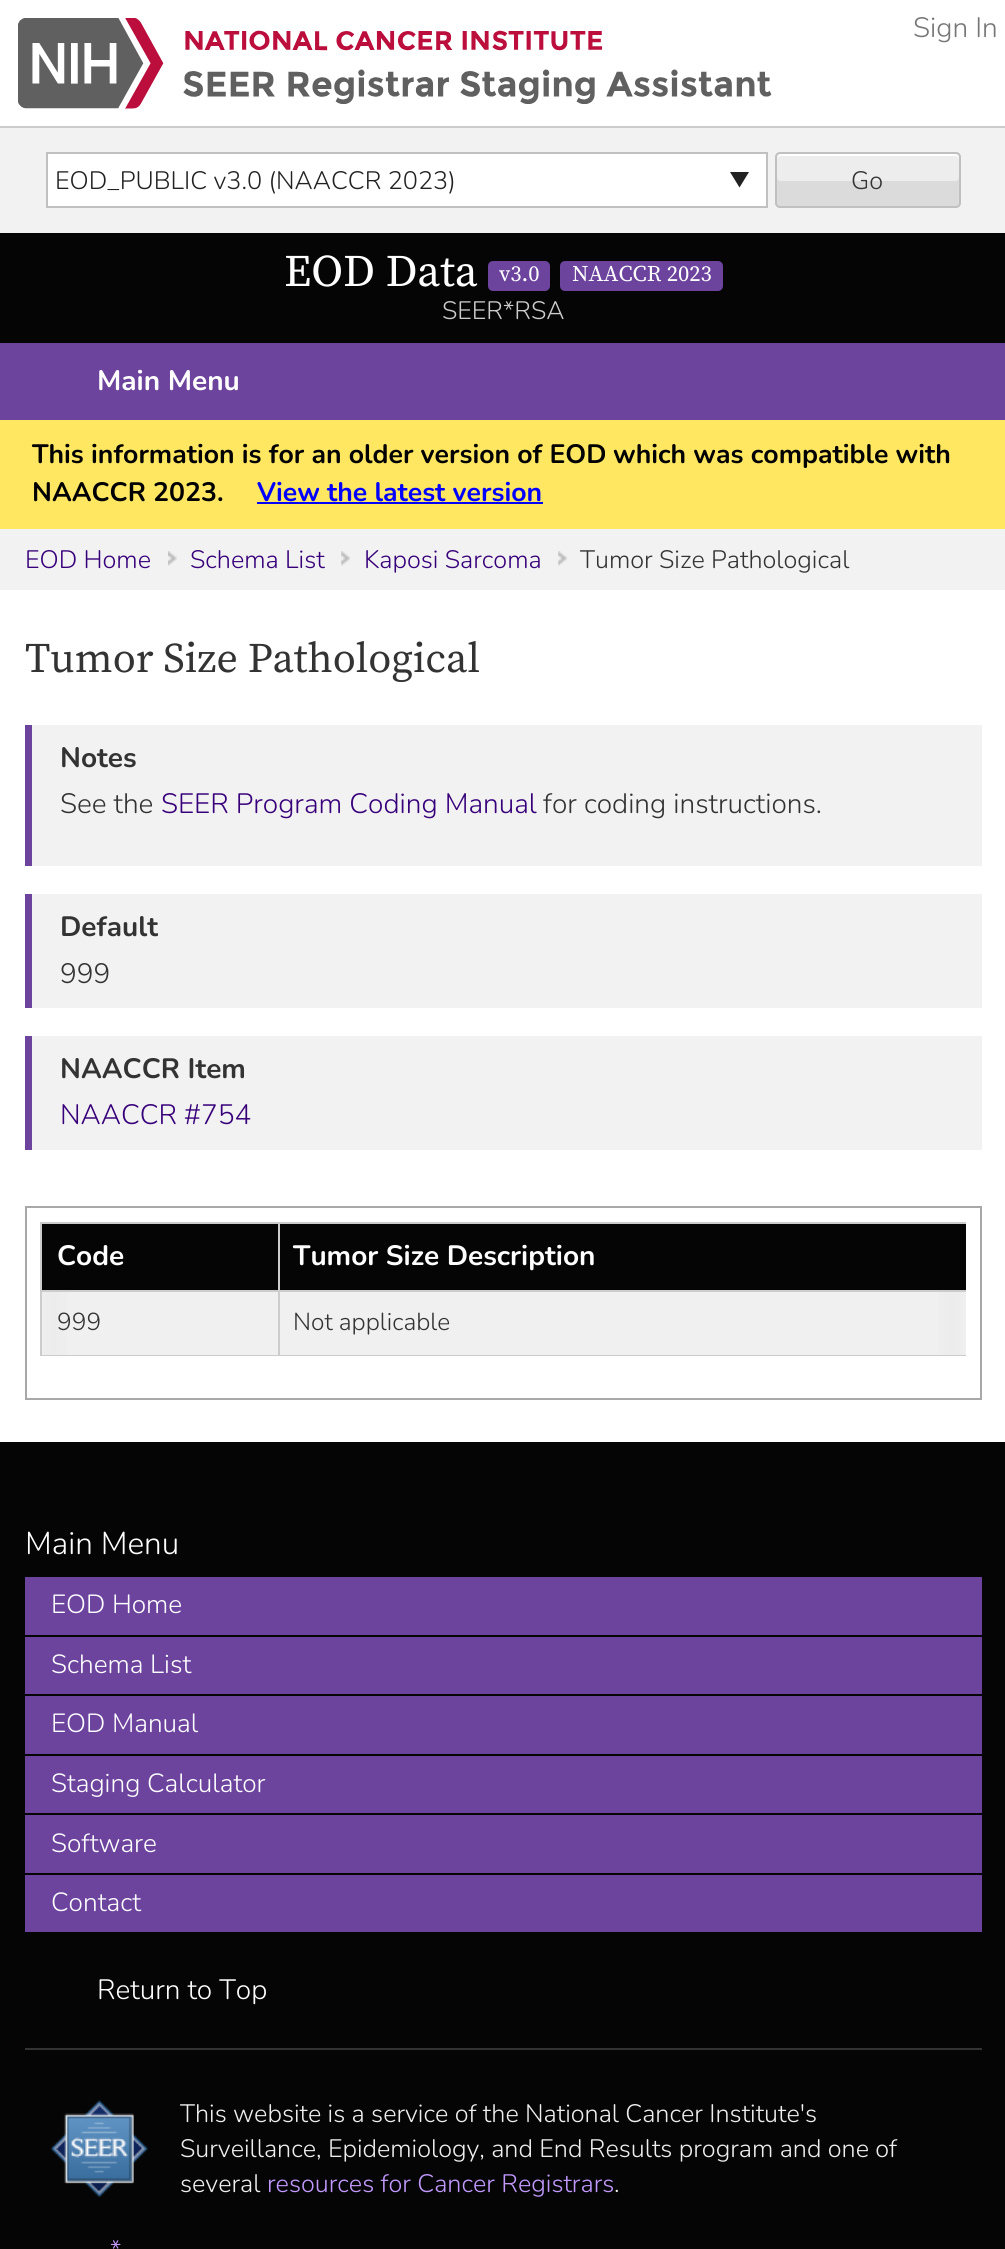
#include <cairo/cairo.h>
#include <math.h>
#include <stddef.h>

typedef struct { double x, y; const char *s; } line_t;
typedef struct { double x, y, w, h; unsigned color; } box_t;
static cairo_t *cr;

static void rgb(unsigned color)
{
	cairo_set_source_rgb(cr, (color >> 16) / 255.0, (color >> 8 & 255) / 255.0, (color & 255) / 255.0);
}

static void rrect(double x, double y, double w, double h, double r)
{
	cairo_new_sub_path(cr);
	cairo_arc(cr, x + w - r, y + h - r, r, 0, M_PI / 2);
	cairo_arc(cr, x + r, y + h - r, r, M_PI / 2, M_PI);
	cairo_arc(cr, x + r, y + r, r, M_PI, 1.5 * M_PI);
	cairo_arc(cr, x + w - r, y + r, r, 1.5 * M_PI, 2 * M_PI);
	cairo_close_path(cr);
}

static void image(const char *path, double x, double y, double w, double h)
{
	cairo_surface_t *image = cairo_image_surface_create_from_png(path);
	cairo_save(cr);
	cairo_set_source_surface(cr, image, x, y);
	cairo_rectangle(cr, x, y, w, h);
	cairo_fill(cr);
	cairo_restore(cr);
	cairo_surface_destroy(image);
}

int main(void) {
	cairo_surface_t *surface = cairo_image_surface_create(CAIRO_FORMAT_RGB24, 1005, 2249);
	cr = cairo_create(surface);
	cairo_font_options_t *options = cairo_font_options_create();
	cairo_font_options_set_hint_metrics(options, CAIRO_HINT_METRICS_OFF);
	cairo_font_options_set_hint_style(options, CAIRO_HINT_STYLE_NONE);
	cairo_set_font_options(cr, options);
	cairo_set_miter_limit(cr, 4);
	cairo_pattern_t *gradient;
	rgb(0x050505);
	cairo_paint(cr);
	rgb(0xffffff);
	cairo_rectangle(cr, 0, 0, 1005, 126);
	cairo_fill(cr);
	image("img/1.png", 18, 18, 754, 91);
	{
		static const box_t items[] = {
			{0, 128, 1005, 105, 0xf2f2f2},
			{0, 126, 1005, 2, 0xcccccc},
			{48, 154, 718, 52, 0xffffff},
		};
		for (size_t i = 0; i < sizeof items / sizeof *items; i++) {
			rgb(items[i].color);
			cairo_rectangle(cr, items[i].x, items[i].y, items[i].w, items[i].h);
			cairo_fill(cr);
		}
	}
	rgb(0x222222);
	cairo_new_path(cr);
	cairo_move_to(cr, 749, 172);
	cairo_line_to(cr, 739.5, 187.5);
	cairo_line_to(cr, 730, 172);
	cairo_close_path(cr);
	cairo_fill(cr);
	cairo_rectangle(cr, 47, 153, 720, 54);
	rgb(0xc0c0c0);
	cairo_stroke(cr);
	rgb(0xededed);
	rrect(775, 152, 186, 56, 5);
	cairo_fill(cr);
	rgb(0xffffff);
	cairo_new_path(cr);
	cairo_move_to(cr, 780, 156);
	cairo_line_to(cr, 956, 156);
	cairo_curve_to(cr, 957, 156, 959, 157, 959, 159);
	cairo_line_to(cr, 959, 158);
	cairo_curve_to(cr, 959, 156, 957, 154, 955, 154);
	cairo_line_to(cr, 781, 154);
	cairo_curve_to(cr, 779, 154, 777, 156, 777, 158);
	cairo_line_to(cr, 777, 159);
	cairo_curve_to(cr, 777, 157, 779, 156, 780, 156);
	cairo_close_path(cr);
	cairo_fill(cr);
	rgb(0xdbdbdb);
	cairo_new_path(cr);
	cairo_move_to(cr, 777, 178);
	cairo_line_to(cr, 777, 203);
	cairo_curve_to(cr, 777, 205, 779, 207, 781, 207);
	cairo_line_to(cr, 955, 207);
	cairo_curve_to(cr, 957, 207, 959, 205, 959, 203);
	cairo_line_to(cr, 959, 178);
	cairo_curve_to(cr, 959, 180, 957, 181, 956, 181);
	cairo_line_to(cr, 780, 181);
	cairo_curve_to(cr, 779, 181, 777, 180, 777, 178);
	cairo_close_path(cr);
	cairo_fill(cr);
	rrect(776, 153, 184, 54, 4);
	rgb(0xc0c0c0);
	cairo_stroke(cr);
	rgb(0x6c439d);
	rrect(488, 261, 62, 30, 5);
	cairo_fill(cr);
	rrect(560, 261, 163, 30, 5);
	cairo_fill(cr);
	{
		static const box_t items[] = {
			{0, 343, 1005, 77, 0x6c439d},
			{0, 420, 1005, 109, 0xffe761},
			{257, 502, 286, 2, 0x0000ff},
			{0, 529, 1005, 61, 0xf2f2f2},
		};
		for (size_t i = 0; i < sizeof items / sizeof *items; i++) {
			rgb(items[i].color);
			cairo_rectangle(cr, items[i].x, items[i].y, items[i].w, items[i].h);
			cairo_fill(cr);
		}
	}
	image("img/2.png", 168, 551, 9, 15);
	image("img/3.png", 341, 551, 9, 15);
	image("img/3.png", 558, 551, 9, 15);
	{
		static const box_t items[] = {
			{0, 590, 1005, 852, 0xffffff},
			{32, 725, 950, 141, 0xf2f2f2},
			{25, 725, 7, 141, 0x6c439d},
			{32, 894, 950, 114, 0xf2f2f2},
			{25, 894, 7, 114, 0x6c439d},
			{32, 1036, 950, 114, 0xf2f2f2},
			{25, 1036, 7, 114, 0x6c439d},
		};
		for (size_t i = 0; i < sizeof items / sizeof *items; i++) {
			rgb(items[i].color);
			cairo_rectangle(cr, items[i].x, items[i].y, items[i].w, items[i].h);
			cairo_fill(cr);
		}
	}
	cairo_rectangle(cr, 26, 1207, 955, 192);
	rgb(0xa8a8a8);
	cairo_stroke(cr);
	gradient = cairo_pattern_create_linear(966, 1289, 938, 1289);
	cairo_pattern_add_color_stop_rgba(gradient, 0, 0.765, 0.765, 0.773, 1);
	cairo_pattern_add_color_stop_rgba(gradient, 1, 1, 1, 1, 1);
	cairo_set_source(cr, gradient);
	cairo_pattern_destroy(gradient);
	cairo_rectangle(cr, 939, 1292, 26, 63);
	cairo_fill(cr);
	gradient = cairo_pattern_create_linear(40, 1289, 68, 1289);
	cairo_pattern_add_color_stop_rgba(gradient, 0, 0.765, 0.765, 0.773, 1);
	cairo_pattern_add_color_stop_rgba(gradient, 1, 1, 1, 1, 1);
	cairo_set_source(cr, gradient);
	cairo_pattern_destroy(gradient);
	cairo_rectangle(cr, 42, 1292, 25, 63);
	cairo_fill(cr);
	gradient = cairo_pattern_create_linear(966, 1289, 854, 1289);
	cairo_pattern_add_color_stop_rgba(gradient, 0, 1, 1, 1, 1);
	cairo_pattern_add_color_stop_rgba(gradient, 1, 1, 1, 1, 0);
	cairo_set_source(cr, gradient);
	cairo_pattern_destroy(gradient);
	cairo_rectangle(cr, 940, 1292, 25, 63);
	cairo_fill(cr);
	gradient = cairo_pattern_create_linear(40, 1289, 152, 1289);
	cairo_pattern_add_color_stop_rgba(gradient, 0, 1, 1, 1, 1);
	cairo_pattern_add_color_stop_rgba(gradient, 1, 1, 1, 1, 0);
	cairo_set_source(cr, gradient);
	cairo_pattern_destroy(gradient);
	cairo_rectangle(cr, 42, 1292, 24, 63);
	cairo_fill(cr);
	rgb(0x050505);
	cairo_rectangle(cr, 42, 1224, 236, 66);
	cairo_fill(cr);
	rgb(0xcccccc);
	cairo_rectangle(cr, 278, 1222, 688, 2);
	cairo_fill(cr);
	cairo_rectangle(cr, 278, 1290, 688, 2);
	cairo_fill(cr);
	cairo_rectangle(cr, 278, 1355, 688, 1);
	cairo_fill(cr);
	cairo_rectangle(cr, 278, 1290, 2, 66);
	cairo_fill(cr);
	cairo_rectangle(cr, 40, 1290, 240, 2);
	cairo_fill(cr);
	cairo_rectangle(cr, 278, 1222, 2, 70);
	cairo_fill(cr);
	cairo_rectangle(cr, 40, 1222, 240, 2);
	cairo_fill(cr);
	cairo_rectangle(cr, 40, 1355, 240, 1);
	cairo_fill(cr);
	cairo_rectangle(cr, 40, 1290, 2, 66);
	cairo_fill(cr);
	cairo_rectangle(cr, 40, 1222, 2, 70);
	cairo_fill(cr);
	rgb(0x050505);
	cairo_rectangle(cr, 280, 1224, 686, 66);
	cairo_fill(cr);
	cairo_set_source_rgba(cr, 0, 0, 0, 0.06);
	cairo_rectangle(cr, 42, 1292, 236, 63);
	cairo_fill(cr);
	cairo_rectangle(cr, 280, 1292, 686, 63);
	cairo_fill(cr);
	rgb(0x6c439d);
	cairo_rectangle(cr, 25, 1577, 957, 355);
	cairo_fill(cr);
	rgb(0x050505);
	cairo_rectangle(cr, 25, 1635, 957, 2);
	cairo_fill(cr);
	cairo_rectangle(cr, 25, 1694, 957, 2);
	cairo_fill(cr);
	cairo_rectangle(cr, 25, 1754, 957, 2);
	cairo_fill(cr);
	cairo_rectangle(cr, 25, 1813, 957, 2);
	cairo_fill(cr);
	cairo_rectangle(cr, 25, 1873, 957, 2);
	cairo_fill(cr);
	rgb(0x333333);
	cairo_rectangle(cr, 25, 2048, 957, 2);
	cairo_fill(cr);
	image("img/4.png", 50, 2100, 98, 97);
	cairo_select_font_face(cr, "Nunito ExtraLight", CAIRO_FONT_SLANT_NORMAL, CAIRO_FONT_WEIGHT_NORMAL);
	cairo_set_font_size(cr, 28);
	rgb(0x767676);
	cairo_move_to(cr, 913, 37);
	cairo_show_text(cr, "Sign In");
	cairo_set_font_size(cr, 25.2);
	rgb(0x222222);
	cairo_move_to(cr, 55, 189);
	cairo_show_text(cr, "EOD_PUBLIC v3.0 (NAACCR 2023)");
	rgb(0x333333);
	cairo_move_to(cr, 851, 189);
	cairo_show_text(cr, "Go");
	cairo_select_font_face(cr, "Source Serif Pro", CAIRO_FONT_SLANT_NORMAL, CAIRO_FONT_WEIGHT_NORMAL);
	cairo_set_font_size(cr, 45);
	rgb(0xffffff);
	cairo_move_to(cr, 284, 286);
	cairo_show_text(cr, "EOD Data");
	cairo_set_font_size(cr, 22.5);
	cairo_move_to(cr, 499, 281);
	cairo_show_text(cr, "v3.0");
	cairo_move_to(cr, 572, 281);
	cairo_show_text(cr, "NAACCR 2023");
	cairo_select_font_face(cr, "Nunito ExtraLight", CAIRO_FONT_SLANT_NORMAL, CAIRO_FONT_WEIGHT_NORMAL);
	cairo_set_font_size(cr, 25.2);
	rgb(0xcccccc);
	cairo_move_to(cr, 442, 319);
	cairo_show_text(cr, "SEER*RSA");
	cairo_select_font_face(cr, "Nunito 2 ExtraLight", CAIRO_FONT_SLANT_NORMAL, CAIRO_FONT_WEIGHT_NORMAL);
	cairo_set_font_size(cr, 28);
	rgb(0xffffff);
	cairo_move_to(cr, 97, 390);
	cairo_show_text(cr, "Main Menu");
	cairo_set_font_size(cr, 26.6);
	rgb(0x000000);
	{
		static const line_t items[] = {
			{32, 463, "This information is for an older version of EOD"},
			{613, 463, "which was compatible with"},
			{32, 501, "NAACCR 2023."},
		};
		for (size_t i = 0; i < sizeof items / sizeof *items; i++) {
			cairo_move_to(cr, items[i].x, items[i].y);
			cairo_show_text(cr, items[i].s);
		}
	}
	rgb(0x0000ff);
	cairo_move_to(cr, 257, 501);
	cairo_show_text(cr, "View the latest version");
	cairo_select_font_face(cr, "Nunito ExtraLight", CAIRO_FONT_SLANT_NORMAL, CAIRO_FONT_WEIGHT_NORMAL);
	cairo_set_font_size(cr, 25.2);
	rgb(0x37007a);
	{
		static const line_t items[] = {
			{25, 568, "EOD Home"},
			{190, 568, "Schema List"},
			{364, 568, "Kaposi Sarcoma"},
		};
		for (size_t i = 0; i < sizeof items / sizeof *items; i++) {
			cairo_move_to(cr, items[i].x, items[i].y);
			cairo_show_text(cr, items[i].s);
		}
	}
	rgb(0x333333);
	cairo_move_to(cr, 580, 568);
	cairo_show_text(cr, "Tumor Size Pathological");
	cairo_select_font_face(cr, "Source Serif Pro", CAIRO_FONT_SLANT_NORMAL, CAIRO_FONT_WEIGHT_NORMAL);
	cairo_set_font_size(cr, 42);
	cairo_move_to(cr, 25, 672);
	cairo_show_text(cr, "Tumor Size Pathological");
	cairo_select_font_face(cr, "Nunito 2 ExtraLight", CAIRO_FONT_SLANT_NORMAL, CAIRO_FONT_WEIGHT_NORMAL);
	cairo_set_font_size(cr, 28);
	cairo_move_to(cr, 60, 767);
	cairo_show_text(cr, "Notes");
	cairo_select_font_face(cr, "Nunito ExtraLight", CAIRO_FONT_SLANT_NORMAL, CAIRO_FONT_WEIGHT_NORMAL);
	cairo_move_to(cr, 60, 813);
	cairo_show_text(cr, "See the");
	rgb(0x37007a);
	cairo_move_to(cr, 161, 813);
	cairo_show_text(cr, "SEER Program Coding Manual");
	rgb(0x333333);
	cairo_move_to(cr, 543, 813);
	cairo_show_text(cr, "for coding instructions.");
	cairo_select_font_face(cr, "Nunito 2 ExtraLight", CAIRO_FONT_SLANT_NORMAL, CAIRO_FONT_WEIGHT_NORMAL);
	cairo_move_to(cr, 60, 936);
	cairo_show_text(cr, "Default");
	cairo_select_font_face(cr, "Nunito ExtraLight", CAIRO_FONT_SLANT_NORMAL, CAIRO_FONT_WEIGHT_NORMAL);
	cairo_move_to(cr, 60, 983);
	cairo_show_text(cr, "999");
	cairo_select_font_face(cr, "Nunito 2 ExtraLight", CAIRO_FONT_SLANT_NORMAL, CAIRO_FONT_WEIGHT_NORMAL);
	cairo_move_to(cr, 60, 1078);
	cairo_show_text(cr, "NAACCR Item");
	cairo_select_font_face(cr, "Nunito ExtraLight", CAIRO_FONT_SLANT_NORMAL, CAIRO_FONT_WEIGHT_NORMAL);
	rgb(0x37007a);
	cairo_move_to(cr, 60, 1124);
	cairo_show_text(cr, "NAACCR #754");
	cairo_select_font_face(cr, "Nunito 2 ExtraLight", CAIRO_FONT_SLANT_NORMAL, CAIRO_FONT_WEIGHT_NORMAL);
	rgb(0xffffff);
	cairo_move_to(cr, 57, 1265);
	cairo_show_text(cr, "Code");
	cairo_move_to(cr, 293, 1265);
	cairo_show_text(cr, "Tumor Size Description");
	cairo_select_font_face(cr, "Nunito ExtraLight", CAIRO_FONT_SLANT_NORMAL, CAIRO_FONT_WEIGHT_NORMAL);
	cairo_set_font_size(cr, 24.5);
	rgb(0x333333);
	cairo_move_to(cr, 57, 1330);
	cairo_show_text(cr, "999");
	cairo_move_to(cr, 293, 1330);
	cairo_show_text(cr, "Not applicable");
	cairo_set_font_size(cr, 31.5);
	rgb(0xffffff);
	cairo_move_to(cr, 25, 1554);
	cairo_show_text(cr, "Main Menu");
	cairo_set_font_size(cr, 26.25);
	{
		static const line_t items[] = {
			{51, 1613, "EOD Home"},
			{51, 1673, "Schema List"},
			{51, 1732, "EOD Manual"},
			{51, 1792, "Staging Calculator"},
			{51, 1852, "Software"},
			{51, 1911, "Contact"},
		};
		for (size_t i = 0; i < sizeof items / sizeof *items; i++) {
			cairo_move_to(cr, items[i].x, items[i].y);
			cairo_show_text(cr, items[i].s);
		}
	}
	cairo_set_font_size(cr, 28);
	cairo_move_to(cr, 97, 1999);
	cairo_show_text(cr, "Return to Top");
	cairo_set_font_size(cr, 25.2);
	rgb(0xeeeeee);
	{
		static const line_t items[] = {
			{180, 2122, "This website is a service of the National Cancer Institute's"},
			{180, 2157, "Surveillance, Epidemiology, and End Results program and one of"},
			{180, 2192, "several"},
		};
		for (size_t i = 0; i < sizeof items / sizeof *items; i++) {
			cairo_move_to(cr, items[i].x, items[i].y);
			cairo_show_text(cr, items[i].s);
		}
	}
	rgb(0xc299ff);
	cairo_move_to(cr, 267, 2192);
	cairo_show_text(cr, "resources for Cancer Registrars");
	rgb(0xeeeeee);
	cairo_move_to(cr, 614, 2192);
	cairo_show_text(cr, ".");
	rgb(0xc299ff);
	cairo_move_to(cr, 110, 2258);
	cairo_show_text(cr, "*");
	cairo_surface_write_to_png(surface, "page.png");
	cairo_font_options_destroy(options);
	cairo_destroy(cr);
	cairo_surface_destroy(surface);
	return 0;
}
